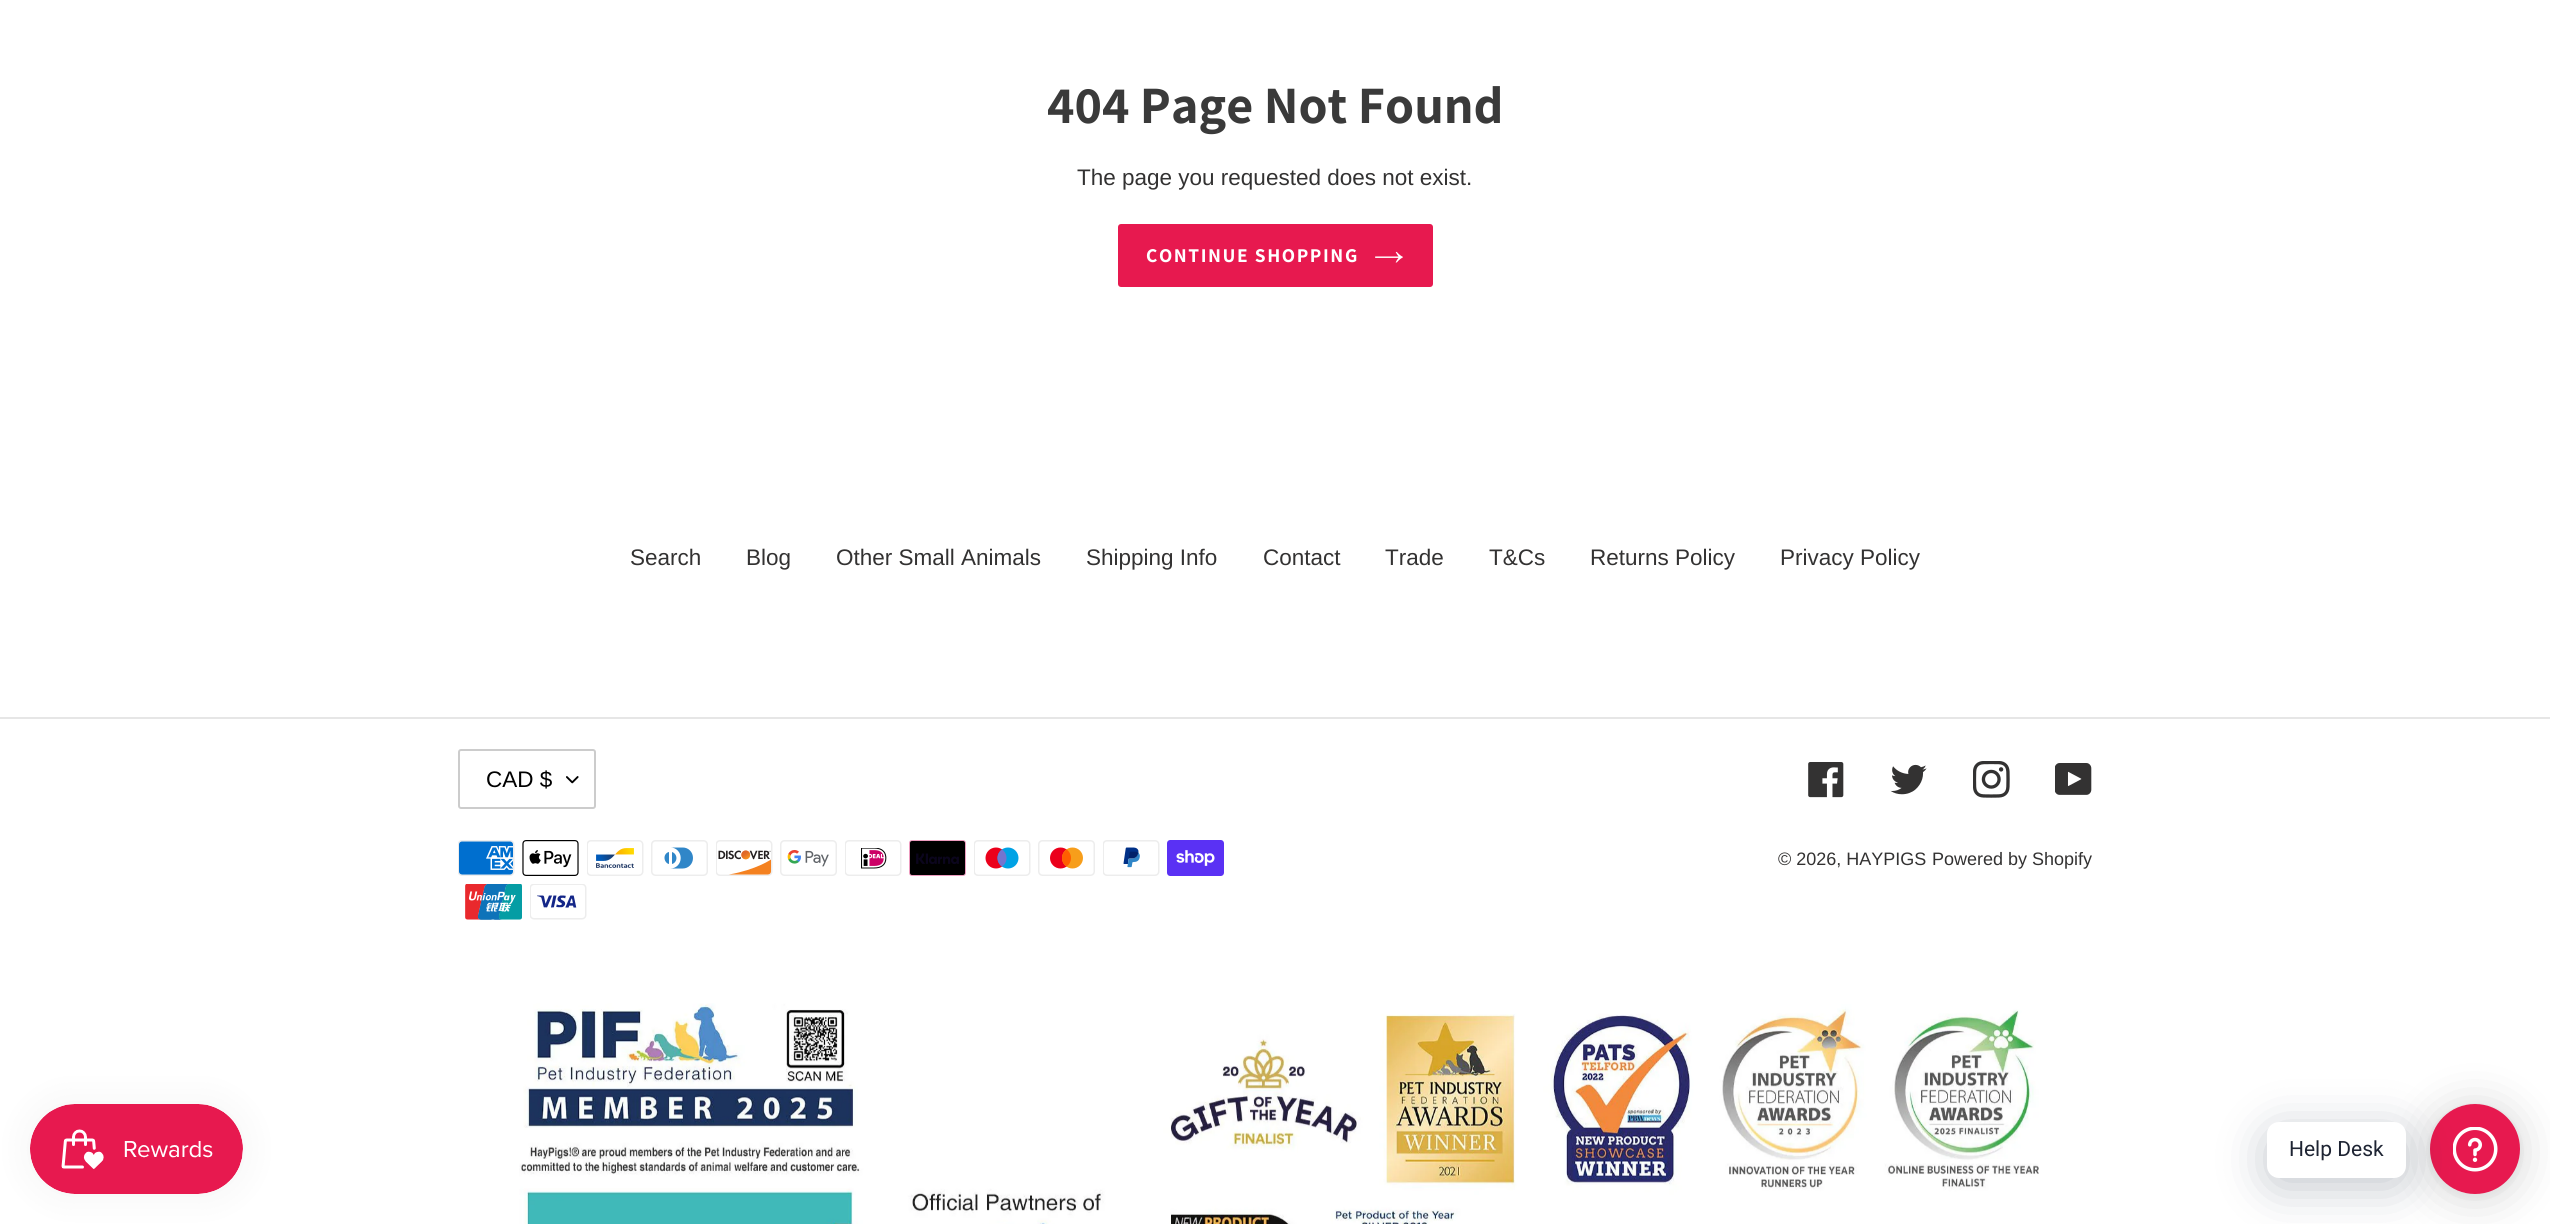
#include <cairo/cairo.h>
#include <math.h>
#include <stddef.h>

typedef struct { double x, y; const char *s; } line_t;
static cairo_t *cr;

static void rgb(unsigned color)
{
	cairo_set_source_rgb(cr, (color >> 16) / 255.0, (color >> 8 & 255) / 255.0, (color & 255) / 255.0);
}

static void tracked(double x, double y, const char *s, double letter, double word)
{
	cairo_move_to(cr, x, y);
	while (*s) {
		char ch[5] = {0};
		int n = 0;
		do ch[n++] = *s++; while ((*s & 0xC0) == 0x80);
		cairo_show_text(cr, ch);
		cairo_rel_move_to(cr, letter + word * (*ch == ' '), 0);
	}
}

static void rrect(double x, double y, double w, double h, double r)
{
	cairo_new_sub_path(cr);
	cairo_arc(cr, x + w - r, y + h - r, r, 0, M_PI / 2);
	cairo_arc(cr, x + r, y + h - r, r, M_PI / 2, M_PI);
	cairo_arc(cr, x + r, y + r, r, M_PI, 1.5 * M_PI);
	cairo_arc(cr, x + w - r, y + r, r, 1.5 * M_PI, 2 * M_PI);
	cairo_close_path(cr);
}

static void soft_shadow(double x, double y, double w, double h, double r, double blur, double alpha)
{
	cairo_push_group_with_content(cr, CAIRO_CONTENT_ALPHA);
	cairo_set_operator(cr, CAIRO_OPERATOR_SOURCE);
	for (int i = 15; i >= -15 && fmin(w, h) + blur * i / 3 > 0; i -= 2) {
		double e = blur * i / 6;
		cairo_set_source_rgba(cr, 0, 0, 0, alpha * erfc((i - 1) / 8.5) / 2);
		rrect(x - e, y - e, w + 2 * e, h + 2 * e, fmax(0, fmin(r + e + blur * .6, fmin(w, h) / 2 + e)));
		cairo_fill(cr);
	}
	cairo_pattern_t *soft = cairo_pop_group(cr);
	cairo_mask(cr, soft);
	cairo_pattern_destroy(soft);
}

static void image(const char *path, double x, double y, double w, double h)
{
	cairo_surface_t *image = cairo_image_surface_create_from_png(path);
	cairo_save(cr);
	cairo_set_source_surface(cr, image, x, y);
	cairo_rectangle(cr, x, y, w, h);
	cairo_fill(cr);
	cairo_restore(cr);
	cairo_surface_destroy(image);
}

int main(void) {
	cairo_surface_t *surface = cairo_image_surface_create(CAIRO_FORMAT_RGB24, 2550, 1224);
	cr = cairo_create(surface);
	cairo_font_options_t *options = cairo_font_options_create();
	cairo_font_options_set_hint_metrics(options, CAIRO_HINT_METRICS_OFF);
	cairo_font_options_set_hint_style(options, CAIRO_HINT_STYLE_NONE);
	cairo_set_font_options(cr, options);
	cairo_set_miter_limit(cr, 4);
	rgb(0xffffff);
	cairo_paint(cr);
	rgb(0xe7194f);
	rrect(1118, 224, 315, 63, 3);
	cairo_fill(cr);
	image("img/1.png", 1375, 251, 28, 12);
	rgb(0xe6e6e6);
	cairo_rectangle(cr, 0, 717, 2550, 2);
	cairo_fill(cr);
	image("img/2.png", 566, 776, 13, 8);
	rrect(459, 750, 136, 58, 2);
	rgb(0xcccccc);
	cairo_stroke(cr);
	image("img/3.png", 1808, 762, 36, 36);
	image("img/4.png", 1890, 764, 37, 31);
	image("img/5.png", 1973, 761, 37, 37);
	image("img/6.png", 2055, 763, 37, 32);
	image("img/7.png", 458, 840, 57, 36);
	image("img/8.png", 522, 840, 57, 36);
	image("img/9.png", 587, 840, 57, 36);
	image("img/10.png", 651, 840, 57, 36);
	image("img/11.png", 716, 840, 57, 36);
	image("img/12.png", 780, 840, 57, 36);
	image("img/13.png", 845, 840, 57, 36);
	image("img/14.png", 909, 840, 57, 36);
	image("img/15.png", 974, 840, 57, 36);
	image("img/16.png", 1038, 840, 57, 36);
	image("img/17.png", 1103, 840, 57, 36);
	image("img/18.png", 1167, 840, 57, 36);
	image("img/19.png", 465, 884, 57, 36);
	image("img/20.png", 530, 884, 57, 36);
	image("img/21.png", 519, 1003, 1520, 221);
	rgb(0x000000);
	soft_shadow(30, 1104, 213, 90, 45, 19, 0.05);
	image("img/22.png", 30, 1104, 213, 90);
	soft_shadow(2430, 1107, 90, 90, 45, 24, 0.16);
	soft_shadow(2430, 1106, 90, 90, 45, 4.5, 0.06);
	rgb(0xe7194f);
	cairo_arc(cr, 2475, 1149, 45, 0, 2 * M_PI);
	cairo_fill(cr);
	image("img/23.png", 2453, 1127, 45, 45);
	rgb(0x00122e);
	soft_shadow(2267, 1131, 139, 56, 12, 24, 0.24);
	rgb(0xffffff);
	rrect(2267, 1122, 139, 56, 12);
	cairo_fill(cr);
	cairo_select_font_face(cr, "Assistant", CAIRO_FONT_SLANT_NORMAL, CAIRO_FONT_WEIGHT_BOLD);
	cairo_set_font_size(cr, 52.5);
	rgb(0x3a3a3a);
	cairo_move_to(cr, 1047, 123);
	cairo_show_text(cr, "404 Page Not Found");
	cairo_select_font_face(cr, "Liberation Sans", CAIRO_FONT_SLANT_NORMAL, CAIRO_FONT_WEIGHT_NORMAL);
	cairo_set_font_size(cr, 22.5);
	rgb(0x333232);
	cairo_move_to(cr, 1077, 185);
	cairo_show_text(cr, "The page you requested does not exist.");
	cairo_select_font_face(cr, "Assistant", CAIRO_FONT_SLANT_NORMAL, CAIRO_FONT_WEIGHT_BOLD);
	cairo_set_font_size(cr, 19.5);
	rgb(0xffffff);
	tracked(1146, 262, "CONTINUE SHOPPING", 1.6, 0);
	cairo_select_font_face(cr, "Liberation Sans", CAIRO_FONT_SLANT_NORMAL, CAIRO_FONT_WEIGHT_NORMAL);
	cairo_set_font_size(cr, 22.5);
	rgb(0x333232);
	{
		static const line_t items[] = {
			{630, 565, "Search"},
			{746, 565, "Blog"},
			{836, 565, "Other Small Animals"},
			{1086, 565, "Shipping Info"},
			{1263, 565, "Contact"},
			{1385, 565, "Trade"},
			{1489, 565, "T&Cs"},
			{1590, 565, "Returns Policy"},
			{1780, 565, "Privacy Policy"},
		};
		for (size_t i = 0; i < sizeof items / sizeof *items; i++) {
			cairo_move_to(cr, items[i].x, items[i].y);
			cairo_show_text(cr, items[i].s);
		}
	}
	rgb(0x000000);
	cairo_move_to(cr, 486, 787);
	cairo_show_text(cr, "CAD $");
	cairo_set_font_size(cr, 18);
	rgb(0x333232);
	cairo_move_to(cr, 1778, 865);
	cairo_show_text(cr, "© 2026, HAYPIGS");
	cairo_move_to(cr, 1932, 865);
	cairo_show_text(cr, "Powered by Shopify");
	cairo_select_font_face(cr, "Roboto", CAIRO_FONT_SLANT_NORMAL, CAIRO_FONT_WEIGHT_NORMAL);
	cairo_set_font_size(cr, 21);
	rgb(0x1e2433);
	cairo_move_to(cr, 2289, 1156);
	cairo_show_text(cr, "Help Desk");
	cairo_surface_write_to_png(surface, "page.png");
	cairo_font_options_destroy(options);
	cairo_destroy(cr);
	cairo_surface_destroy(surface);
	return 0;
}
